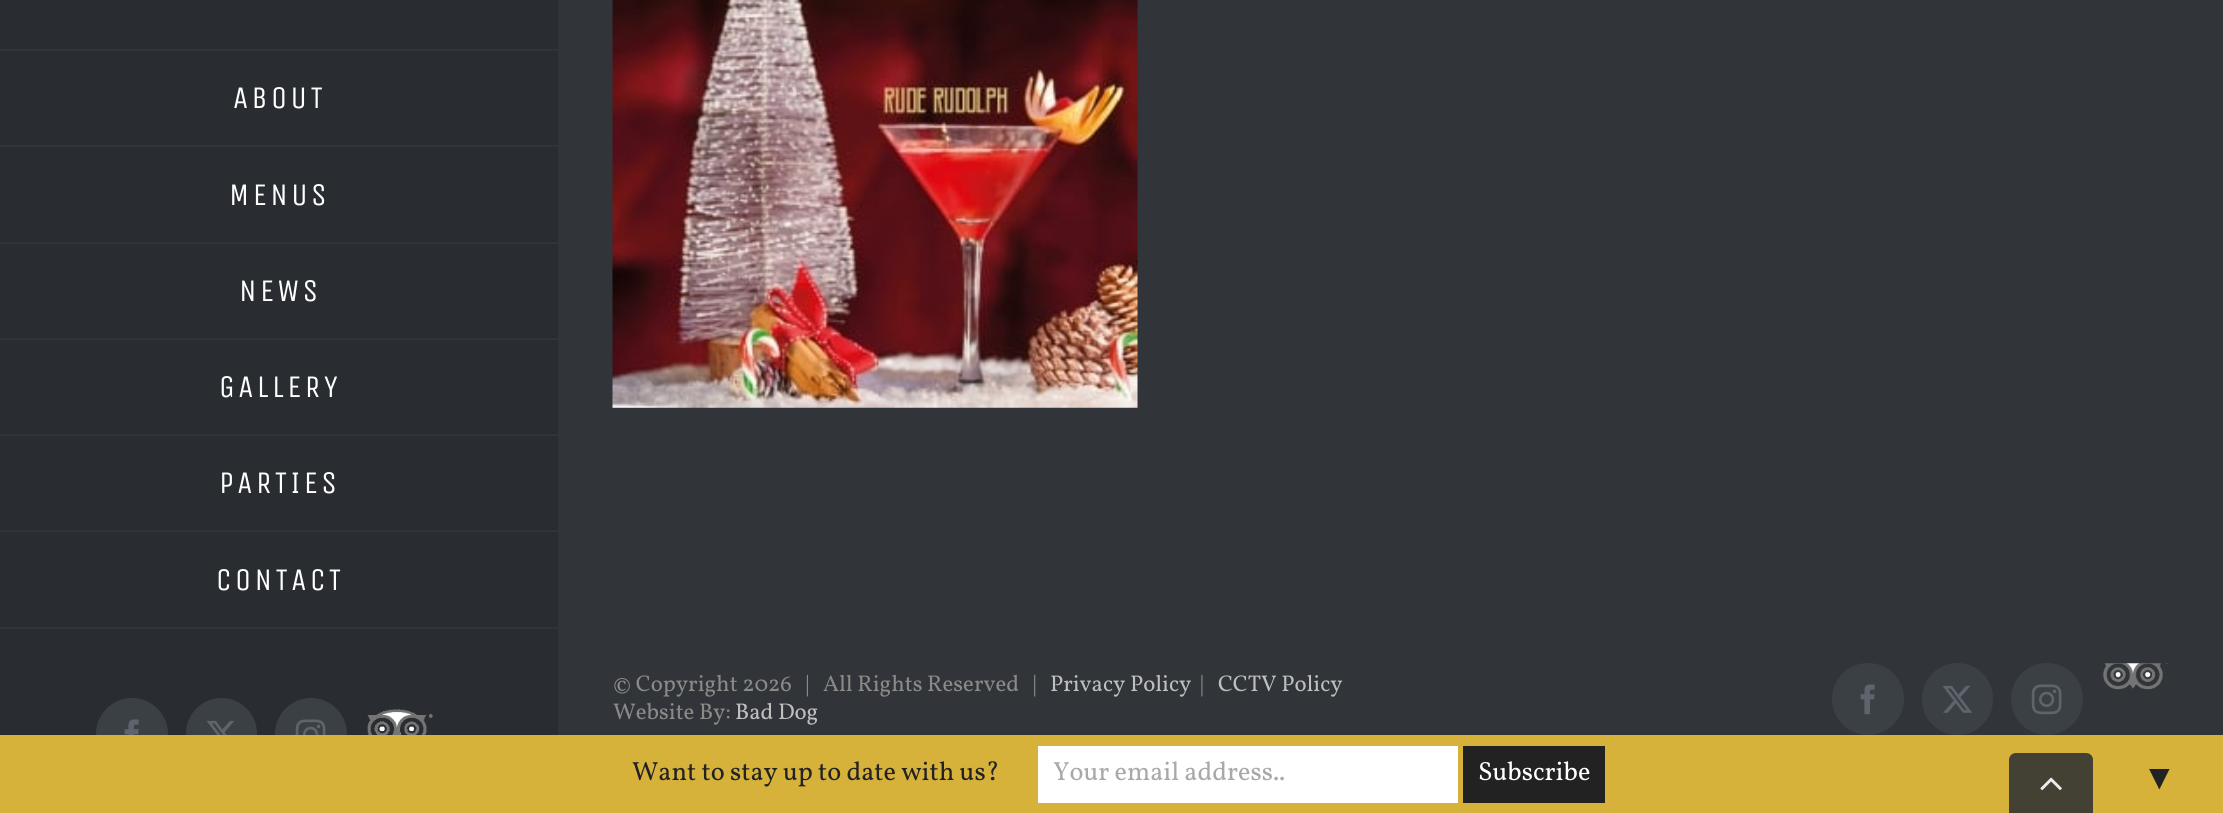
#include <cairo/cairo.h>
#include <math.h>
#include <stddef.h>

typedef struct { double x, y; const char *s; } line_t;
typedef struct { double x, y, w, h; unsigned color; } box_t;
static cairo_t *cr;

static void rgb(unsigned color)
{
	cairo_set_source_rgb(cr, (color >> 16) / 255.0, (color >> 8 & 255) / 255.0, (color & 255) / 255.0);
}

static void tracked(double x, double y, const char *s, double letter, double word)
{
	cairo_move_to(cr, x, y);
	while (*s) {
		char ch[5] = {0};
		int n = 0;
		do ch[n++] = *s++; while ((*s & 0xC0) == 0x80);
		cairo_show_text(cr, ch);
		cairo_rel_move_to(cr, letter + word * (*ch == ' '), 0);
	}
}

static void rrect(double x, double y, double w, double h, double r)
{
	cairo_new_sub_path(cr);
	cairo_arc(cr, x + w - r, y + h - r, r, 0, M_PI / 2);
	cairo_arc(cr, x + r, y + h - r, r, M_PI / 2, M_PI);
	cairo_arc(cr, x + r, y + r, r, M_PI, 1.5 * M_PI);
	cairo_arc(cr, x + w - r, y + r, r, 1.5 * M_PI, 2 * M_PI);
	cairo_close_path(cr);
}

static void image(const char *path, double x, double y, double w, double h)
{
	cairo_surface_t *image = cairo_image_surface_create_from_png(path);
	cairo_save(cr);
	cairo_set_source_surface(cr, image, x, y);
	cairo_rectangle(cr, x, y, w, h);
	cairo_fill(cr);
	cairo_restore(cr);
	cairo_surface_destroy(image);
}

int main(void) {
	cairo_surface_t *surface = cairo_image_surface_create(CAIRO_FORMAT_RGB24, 2223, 813);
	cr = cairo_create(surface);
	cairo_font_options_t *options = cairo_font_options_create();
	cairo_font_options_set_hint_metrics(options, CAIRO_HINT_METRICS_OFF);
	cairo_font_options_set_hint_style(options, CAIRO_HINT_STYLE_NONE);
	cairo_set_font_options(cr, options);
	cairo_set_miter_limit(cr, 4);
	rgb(0x313539);
	cairo_paint(cr);
	{
		static const box_t items[] = {
			{0, 0, 558, 735, 0x292c30},
			{0, 49, 560, 2, 0x313539},
			{0, 145, 560, 2, 0x313539},
			{0, 242, 560, 2, 0x313539},
			{0, 338, 560, 2, 0x313539},
			{0, 434, 560, 2, 0x313539},
			{0, 530, 560, 2, 0x313539},
			{0, 627, 560, 2, 0x313539},
		};
		for (size_t i = 0; i < sizeof items / sizeof *items; i++) {
			rgb(items[i].color);
			cairo_rectangle(cr, items[i].x, items[i].y, items[i].w, items[i].h);
			cairo_fill(cr);
		}
	}
	rgb(0x3b4045);
	cairo_arc(cr, 132, 734, 35, 0, 2 * M_PI);
	cairo_fill_preserve(cr);
	cairo_stroke(cr);
	image("img/1.png", 124, 719, 15, 16);
	rrect(187, 699, 69, 70, 34.5);
	cairo_fill_preserve(cr);
	cairo_stroke(cr);
	image("img/2.png", 206, 720, 29, 15);
	cairo_arc(cr, 311, 734, 35, 0, 2 * M_PI);
	cairo_fill_preserve(cr);
	cairo_stroke(cr);
	image("img/3.png", 295, 719, 31, 16);
	image("img/4.png", 367, 709, 66, 26);
	image("img/5.png", 612, 0, 526, 408);
	cairo_arc(cr, 1868, 699, 35, 0, 2 * M_PI);
	cairo_fill_preserve(cr);
	cairo_stroke(cr);
	image("img/6.png", 1860, 684, 15, 31);
	rrect(1923, 664, 69, 70, 34.5);
	cairo_fill_preserve(cr);
	cairo_stroke(cr);
	image("img/7.png", 1942, 685, 30, 28);
	cairo_arc(cr, 2047, 699, 35, 0, 2 * M_PI);
	cairo_fill_preserve(cr);
	cairo_stroke(cr);
	image("img/8.png", 2031, 684, 31, 31);
	image("img/9.png", 2103, 663, 65, 27);
	rgb(0xd7b23a);
	cairo_rectangle(cr, 0, 735, 2223, 78);
	cairo_fill(cr);
	rgb(0x434034);
	cairo_new_path(cr);
	cairo_move_to(cr, 2016, 753);
	cairo_line_to(cr, 2086, 753);
	cairo_curve_to(cr, 2090, 753, 2093, 756, 2093, 760);
	cairo_line_to(cr, 2093, 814);
	cairo_line_to(cr, 2009, 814);
	cairo_line_to(cr, 2009, 760);
	cairo_curve_to(cr, 2009, 756, 2012, 753, 2016, 753);
	cairo_close_path(cr);
	cairo_fill(cr);
	image("img/10.png", 2040, 777, 22, 14);
	rgb(0xffffff);
	cairo_rectangle(cr, 1038, 746, 420, 57);
	cairo_fill(cr);
	rgb(0x222222);
	cairo_rectangle(cr, 1463, 746, 142, 57);
	cairo_fill(cr);
	cairo_select_font_face(cr, "Unica One", CAIRO_FONT_SLANT_NORMAL, CAIRO_FONT_WEIGHT_NORMAL);
	cairo_set_font_size(cr, 31.5);
	rgb(0xffffff);
	{
		static const line_t items[] = {
			{233, 108, "ABOUT"},
			{229, 205, "MENUS"},
			{239, 301, "NEWS"},
			{219, 397, "GALLERY"},
			{219, 493, "PARTIES"},
			{216, 590, "CONTACT"},
		};
		for (size_t i = 0; i < sizeof items / sizeof *items; i++) {
			tracked(items[i].x, items[i].y, items[i].s, 3.5, 0);
		}
	}
	cairo_select_font_face(cr, "Vollkorn", CAIRO_FONT_SLANT_NORMAL, CAIRO_FONT_WEIGHT_NORMAL);
	cairo_set_font_size(cr, 22.75);
	rgb(0x8c8989);
	cairo_move_to(cr, 613, 691);
	cairo_show_text(cr, "© Copyright 2026   |   All Rights Reserved   |");
	rgb(0xbfbfbf);
	cairo_move_to(cr, 1050, 691);
	cairo_show_text(cr, "Privacy Policy");
	rgb(0x8c8989);
	cairo_move_to(cr, 1200, 691);
	cairo_show_text(cr, "|");
	rgb(0xbfbfbf);
	cairo_move_to(cr, 1218, 691);
	cairo_show_text(cr, "CCTV Policy");
	rgb(0x8c8989);
	cairo_move_to(cr, 613, 719);
	cairo_show_text(cr, "Website By:");
	rgb(0xbfbfbf);
	cairo_move_to(cr, 735, 719);
	cairo_show_text(cr, "Bad Dog");
	cairo_set_font_size(cr, 26.25);
	rgb(0x222222);
	cairo_move_to(cr, 632, 780);
	cairo_show_text(cr, "Want to stay up to date with us?");
	rgb(0xaaa9a9);
	cairo_move_to(cr, 1053, 780);
	cairo_show_text(cr, "Your email address..");
	rgb(0xffffff);
	cairo_move_to(cr, 1478, 780);
	cairo_show_text(cr, "Subscribe");
	cairo_select_font_face(cr, "Liberation Sans", CAIRO_FONT_SLANT_NORMAL, CAIRO_FONT_WEIGHT_NORMAL);
	cairo_set_font_size(cr, 35);
	rgb(0x222222);
	cairo_move_to(cr, 2142, 789);
	cairo_show_text(cr, "▼");
	cairo_surface_write_to_png(surface, "page.png");
	cairo_font_options_destroy(options);
	cairo_destroy(cr);
	cairo_surface_destroy(surface);
	return 0;
}
